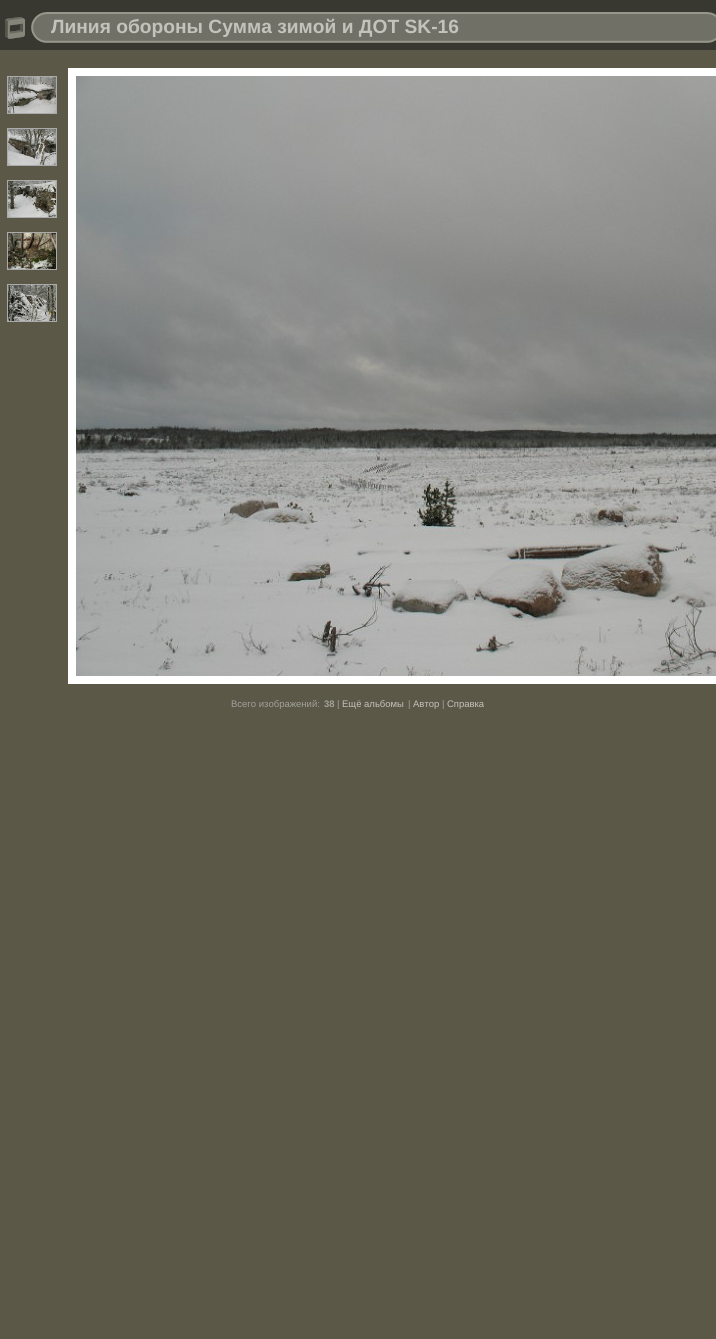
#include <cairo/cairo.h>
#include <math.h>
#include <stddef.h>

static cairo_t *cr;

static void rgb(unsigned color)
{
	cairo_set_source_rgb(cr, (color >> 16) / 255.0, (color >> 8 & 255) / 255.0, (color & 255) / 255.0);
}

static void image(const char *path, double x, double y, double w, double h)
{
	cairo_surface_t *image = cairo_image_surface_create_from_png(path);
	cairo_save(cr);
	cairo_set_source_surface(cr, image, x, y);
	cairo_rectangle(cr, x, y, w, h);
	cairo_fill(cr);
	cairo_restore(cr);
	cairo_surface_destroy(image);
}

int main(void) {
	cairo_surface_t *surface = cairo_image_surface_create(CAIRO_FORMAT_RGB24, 716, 1339);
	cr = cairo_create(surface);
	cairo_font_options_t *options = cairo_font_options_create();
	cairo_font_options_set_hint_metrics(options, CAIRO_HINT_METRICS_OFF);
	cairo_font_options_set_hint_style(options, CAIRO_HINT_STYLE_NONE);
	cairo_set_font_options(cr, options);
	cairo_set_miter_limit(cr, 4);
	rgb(0x5b5848);
	cairo_paint(cr);
	rgb(0x383830);
	cairo_rectangle(cr, 0, 0, 716, 50);
	cairo_fill(cr);
	image("img/1.png", 5, 17, 20, 22);
	image("img/2.png", 31, 12, 20, 31);
	image("img/3.png", 51, 12, 652, 31);
	image("img/4.png", 703, 12, 13, 31);
	cairo_rectangle(cr, 7.5, 76.5, 49, 37);
	rgb(0xaaaaaa);
	cairo_set_line_width(cr, 1);
	cairo_stroke(cr);
	image("img/5.png", 8, 77, 48, 36);
	cairo_rectangle(cr, 7.5, 128.5, 49, 37);
	cairo_stroke(cr);
	image("img/6.png", 8, 129, 48, 36);
	cairo_rectangle(cr, 7.5, 180.5, 49, 37);
	cairo_stroke(cr);
	image("img/7.png", 8, 181, 48, 36);
	cairo_rectangle(cr, 7.5, 232.5, 49, 37);
	cairo_stroke(cr);
	image("img/8.png", 8, 233, 48, 36);
	cairo_rectangle(cr, 7.5, 284.5, 49, 37);
	cairo_stroke(cr);
	image("img/9.png", 8, 285, 48, 36);
	cairo_rectangle(cr, 72, 72, 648, 608);
	rgb(0xffffff);
	cairo_set_line_width(cr, 8);
	cairo_stroke(cr);
	image("img/10.png", 76, 76, 640, 600);
	cairo_select_font_face(cr, "Liberation Sans", CAIRO_FONT_SLANT_NORMAL, CAIRO_FONT_WEIGHT_BOLD);
	cairo_set_font_size(cr, 19.2);
	rgb(0xc3c2bb);
	cairo_move_to(cr, 51, 33);
	cairo_show_text(cr, "Линия обороны Сумма зимой и ДОТ SK-16");
	cairo_select_font_face(cr, "Liberation Sans", CAIRO_FONT_SLANT_NORMAL, CAIRO_FONT_WEIGHT_NORMAL);
	cairo_set_font_size(cr, 9.5);
	rgb(0xa2a19a);
	cairo_move_to(cr, 231, 707);
	cairo_show_text(cr, "Всего изображений:");
	cairo_select_font_face(cr, "Liberation Sans", CAIRO_FONT_SLANT_NORMAL, CAIRO_FONT_WEIGHT_BOLD);
	cairo_move_to(cr, 324, 707);
	cairo_show_text(cr, "38");
	cairo_select_font_face(cr, "Liberation Sans", CAIRO_FONT_SLANT_NORMAL, CAIRO_FONT_WEIGHT_NORMAL);
	cairo_move_to(cr, 337, 707);
	cairo_show_text(cr, "|");
	rgb(0xc3c2bb);
	cairo_move_to(cr, 342, 707);
	cairo_show_text(cr, "Ещё альбомы");
	rgb(0xa2a19a);
	cairo_move_to(cr, 408, 707);
	cairo_show_text(cr, "|");
	rgb(0xc3c2bb);
	cairo_move_to(cr, 413, 707);
	cairo_show_text(cr, "Автор");
	rgb(0xa2a19a);
	cairo_move_to(cr, 442, 707);
	cairo_show_text(cr, "|");
	rgb(0xc3c2bb);
	cairo_move_to(cr, 447, 707);
	cairo_show_text(cr, "Справка");
	cairo_surface_write_to_png(surface, "page.png");
	cairo_font_options_destroy(options);
	cairo_destroy(cr);
	cairo_surface_destroy(surface);
	return 0;
}
